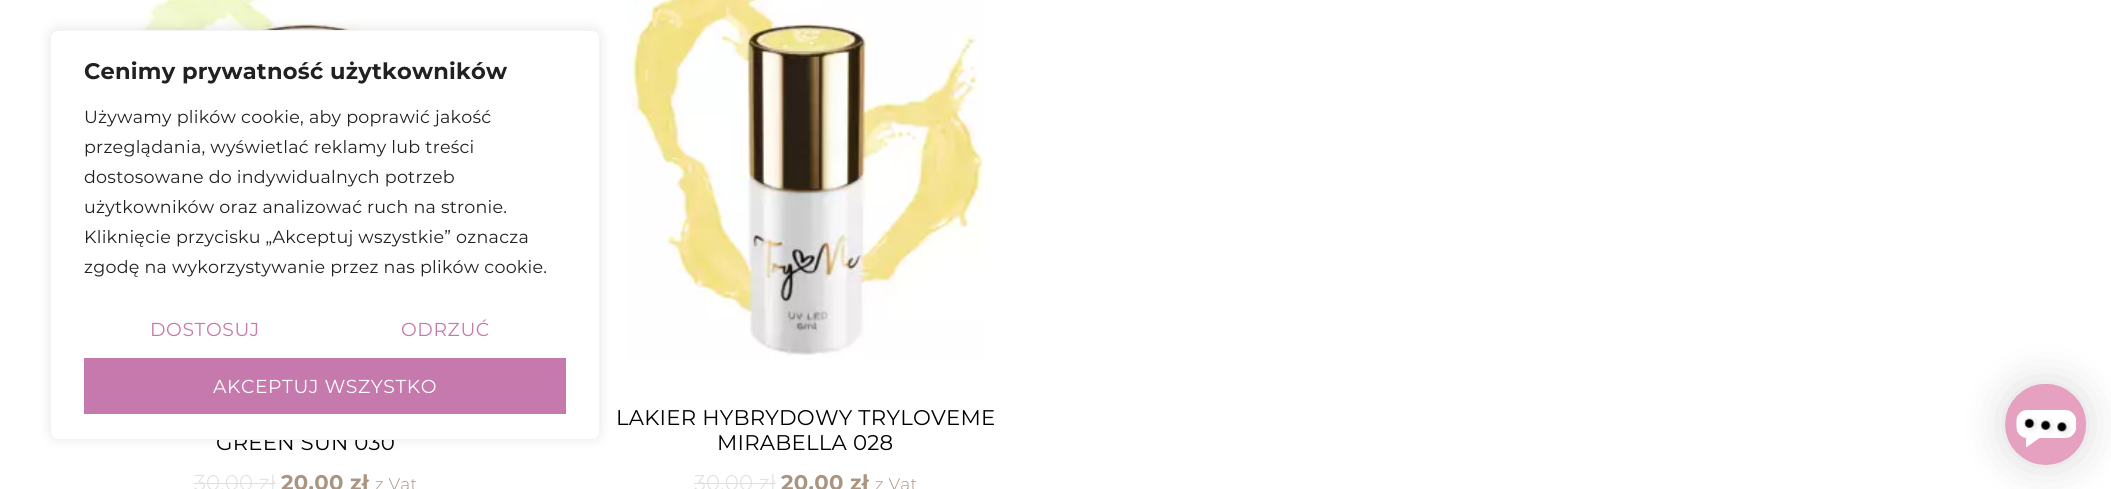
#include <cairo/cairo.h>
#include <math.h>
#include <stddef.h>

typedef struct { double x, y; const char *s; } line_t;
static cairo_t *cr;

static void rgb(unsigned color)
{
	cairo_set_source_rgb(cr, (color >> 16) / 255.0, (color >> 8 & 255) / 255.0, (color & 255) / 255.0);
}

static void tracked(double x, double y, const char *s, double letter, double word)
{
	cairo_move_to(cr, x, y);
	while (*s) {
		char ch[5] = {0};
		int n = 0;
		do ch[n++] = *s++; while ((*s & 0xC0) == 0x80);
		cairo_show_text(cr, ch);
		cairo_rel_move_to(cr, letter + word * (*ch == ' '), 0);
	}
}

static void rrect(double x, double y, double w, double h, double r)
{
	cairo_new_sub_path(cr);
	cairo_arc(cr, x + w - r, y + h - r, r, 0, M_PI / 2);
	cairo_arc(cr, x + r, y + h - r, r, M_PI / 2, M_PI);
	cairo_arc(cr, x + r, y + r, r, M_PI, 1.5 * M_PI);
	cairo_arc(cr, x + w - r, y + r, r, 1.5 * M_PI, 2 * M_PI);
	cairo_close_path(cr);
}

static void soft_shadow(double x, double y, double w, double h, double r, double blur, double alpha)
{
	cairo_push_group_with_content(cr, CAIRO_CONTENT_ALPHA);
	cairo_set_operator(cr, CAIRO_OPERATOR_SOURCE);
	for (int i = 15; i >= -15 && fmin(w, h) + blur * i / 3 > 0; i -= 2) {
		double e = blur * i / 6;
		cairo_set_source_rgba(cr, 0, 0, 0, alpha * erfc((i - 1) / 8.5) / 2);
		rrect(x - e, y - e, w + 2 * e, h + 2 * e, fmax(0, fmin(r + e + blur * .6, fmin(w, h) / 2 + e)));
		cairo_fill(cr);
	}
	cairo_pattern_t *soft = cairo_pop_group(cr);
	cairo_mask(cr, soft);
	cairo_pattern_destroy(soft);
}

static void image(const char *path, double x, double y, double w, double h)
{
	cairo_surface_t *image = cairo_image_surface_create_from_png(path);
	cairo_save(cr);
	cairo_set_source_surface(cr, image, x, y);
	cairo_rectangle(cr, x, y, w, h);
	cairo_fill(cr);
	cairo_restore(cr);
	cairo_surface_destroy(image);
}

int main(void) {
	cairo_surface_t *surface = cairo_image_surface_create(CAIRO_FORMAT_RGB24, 2111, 489);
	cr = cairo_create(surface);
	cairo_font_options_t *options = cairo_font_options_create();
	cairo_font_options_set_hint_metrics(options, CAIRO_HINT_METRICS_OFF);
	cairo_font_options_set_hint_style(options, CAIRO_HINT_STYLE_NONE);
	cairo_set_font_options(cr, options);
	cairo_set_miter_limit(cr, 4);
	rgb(0xffffff);
	cairo_paint(cr);
	image("img/2.png", 131, 0, 360, 30);
	rgb(0xacabab);
	soft_shadow(50, 29, 550, 410, 8, 6, 0.3);
	rgb(0x000000);
	soft_shadow(2005, 384, 81, 81, 40.5, 22, 0.15);
	image("img/1.png", 2005, 384, 82, 81);
	rgb(0xe0dddc);
	cairo_rectangle(cr, 194, 483, 82, 1);
	cairo_fill(cr);
	image("img/3.png", 627, 0, 358, 360);
	cairo_rectangle(cr, 694, 483, 82, 1);
	cairo_fill(cr);
	cairo_select_font_face(cr, "Montserrat", CAIRO_FONT_SLANT_NORMAL, CAIRO_FONT_WEIGHT_NORMAL);
	cairo_set_font_size(cr, 21.25);
	rgb(0x000000);
	tracked(216, 450, "GREEN SUN 030", 0.25, 0);
	rgb(0xffffff);
	rrect(50.5, 30.5, 549, 409, 7.5);
	cairo_fill_preserve(cr);
	rgb(0xf4f4f4);
	cairo_set_line_width(cr, 1);
	cairo_stroke(cr);
	rgb(0xc679ac);
	cairo_rectangle(cr, 84, 358, 482, 56);
	cairo_fill(cr);
	cairo_set_font_size(cr, 18.75);
	rgb(0xffffff);
	tracked(213, 393, "AKCEPTUJ WSZYSTKO", 0.6, 0);
	rgb(0xc679ac);
	tracked(401, 336, "ODRZUĆ", 0.6, 0);
	tracked(150, 336, "DOSTOSUJ", 0.6, 0);
	cairo_set_font_size(cr, 17.5);
	rgb(0x212121);
	{
		static const line_t items[] = {
			{84, 273, "zgodę na wykorzystywanie przez nas plików cookie."},
			{84, 243, "Kliknięcie przycisku „Akceptuj wszystkie” oznacza"},
			{84, 213, "użytkowników oraz analizować ruch na stronie."},
			{84, 183, "dostosowane do indywidualnych potrzeb"},
			{84, 153, "przeglądania, wyświetlać reklamy lub treści"},
			{84, 123, "Używamy plików cookie, aby poprawić jakość"},
		};
		for (size_t i = 0; i < sizeof items / sizeof *items; i++) {
			tracked(items[i].x, items[i].y, items[i].s, 0.25, 0);
		}
	}
	cairo_select_font_face(cr, "Montserrat", CAIRO_FONT_SLANT_NORMAL, CAIRO_FONT_WEIGHT_BOLD);
	cairo_set_font_size(cr, 22.5);
	tracked(84, 79, "Cenimy prywatność użytkowników", 0.25, 0);
	cairo_select_font_face(cr, "Montserrat Light", CAIRO_FONT_SLANT_NORMAL, CAIRO_FONT_WEIGHT_NORMAL);
	cairo_set_font_size(cr, 21.25);
	rgb(0xe0dddc);
	tracked(194, 490, "30.00 zł", 0.25, 0);
	cairo_select_font_face(cr, "Montserrat", CAIRO_FONT_SLANT_NORMAL, CAIRO_FONT_WEIGHT_BOLD);
	rgb(0xaa9582);
	tracked(281, 490, "20.00 zł", 0.25, 0);
	cairo_select_font_face(cr, "Montserrat Light", CAIRO_FONT_SLANT_NORMAL, CAIRO_FONT_WEIGHT_NORMAL);
	cairo_set_font_size(cr, 17);
	tracked(375, 490, "z Vat", 0.25, 0);
	cairo_select_font_face(cr, "Montserrat", CAIRO_FONT_SLANT_NORMAL, CAIRO_FONT_WEIGHT_NORMAL);
	cairo_set_font_size(cr, 21.25);
	rgb(0x000000);
	tracked(616, 425, "LAKIER HYBRYDOWY TRYLOVEME", 0.25, 0);
	tracked(717, 450, "MIRABELLA 028", 0.25, 0);
	cairo_select_font_face(cr, "Montserrat Light", CAIRO_FONT_SLANT_NORMAL, CAIRO_FONT_WEIGHT_NORMAL);
	rgb(0xe0dddc);
	tracked(694, 490, "30.00 zł", 0.25, 0);
	cairo_select_font_face(cr, "Montserrat", CAIRO_FONT_SLANT_NORMAL, CAIRO_FONT_WEIGHT_BOLD);
	rgb(0xaa9582);
	tracked(781, 490, "20.00 zł", 0.25, 0);
	cairo_select_font_face(cr, "Montserrat Light", CAIRO_FONT_SLANT_NORMAL, CAIRO_FONT_WEIGHT_NORMAL);
	cairo_set_font_size(cr, 17);
	tracked(875, 490, "z Vat", 0.25, 0);
	cairo_surface_write_to_png(surface, "page.png");
	cairo_font_options_destroy(options);
	cairo_destroy(cr);
	cairo_surface_destroy(surface);
	return 0;
}
